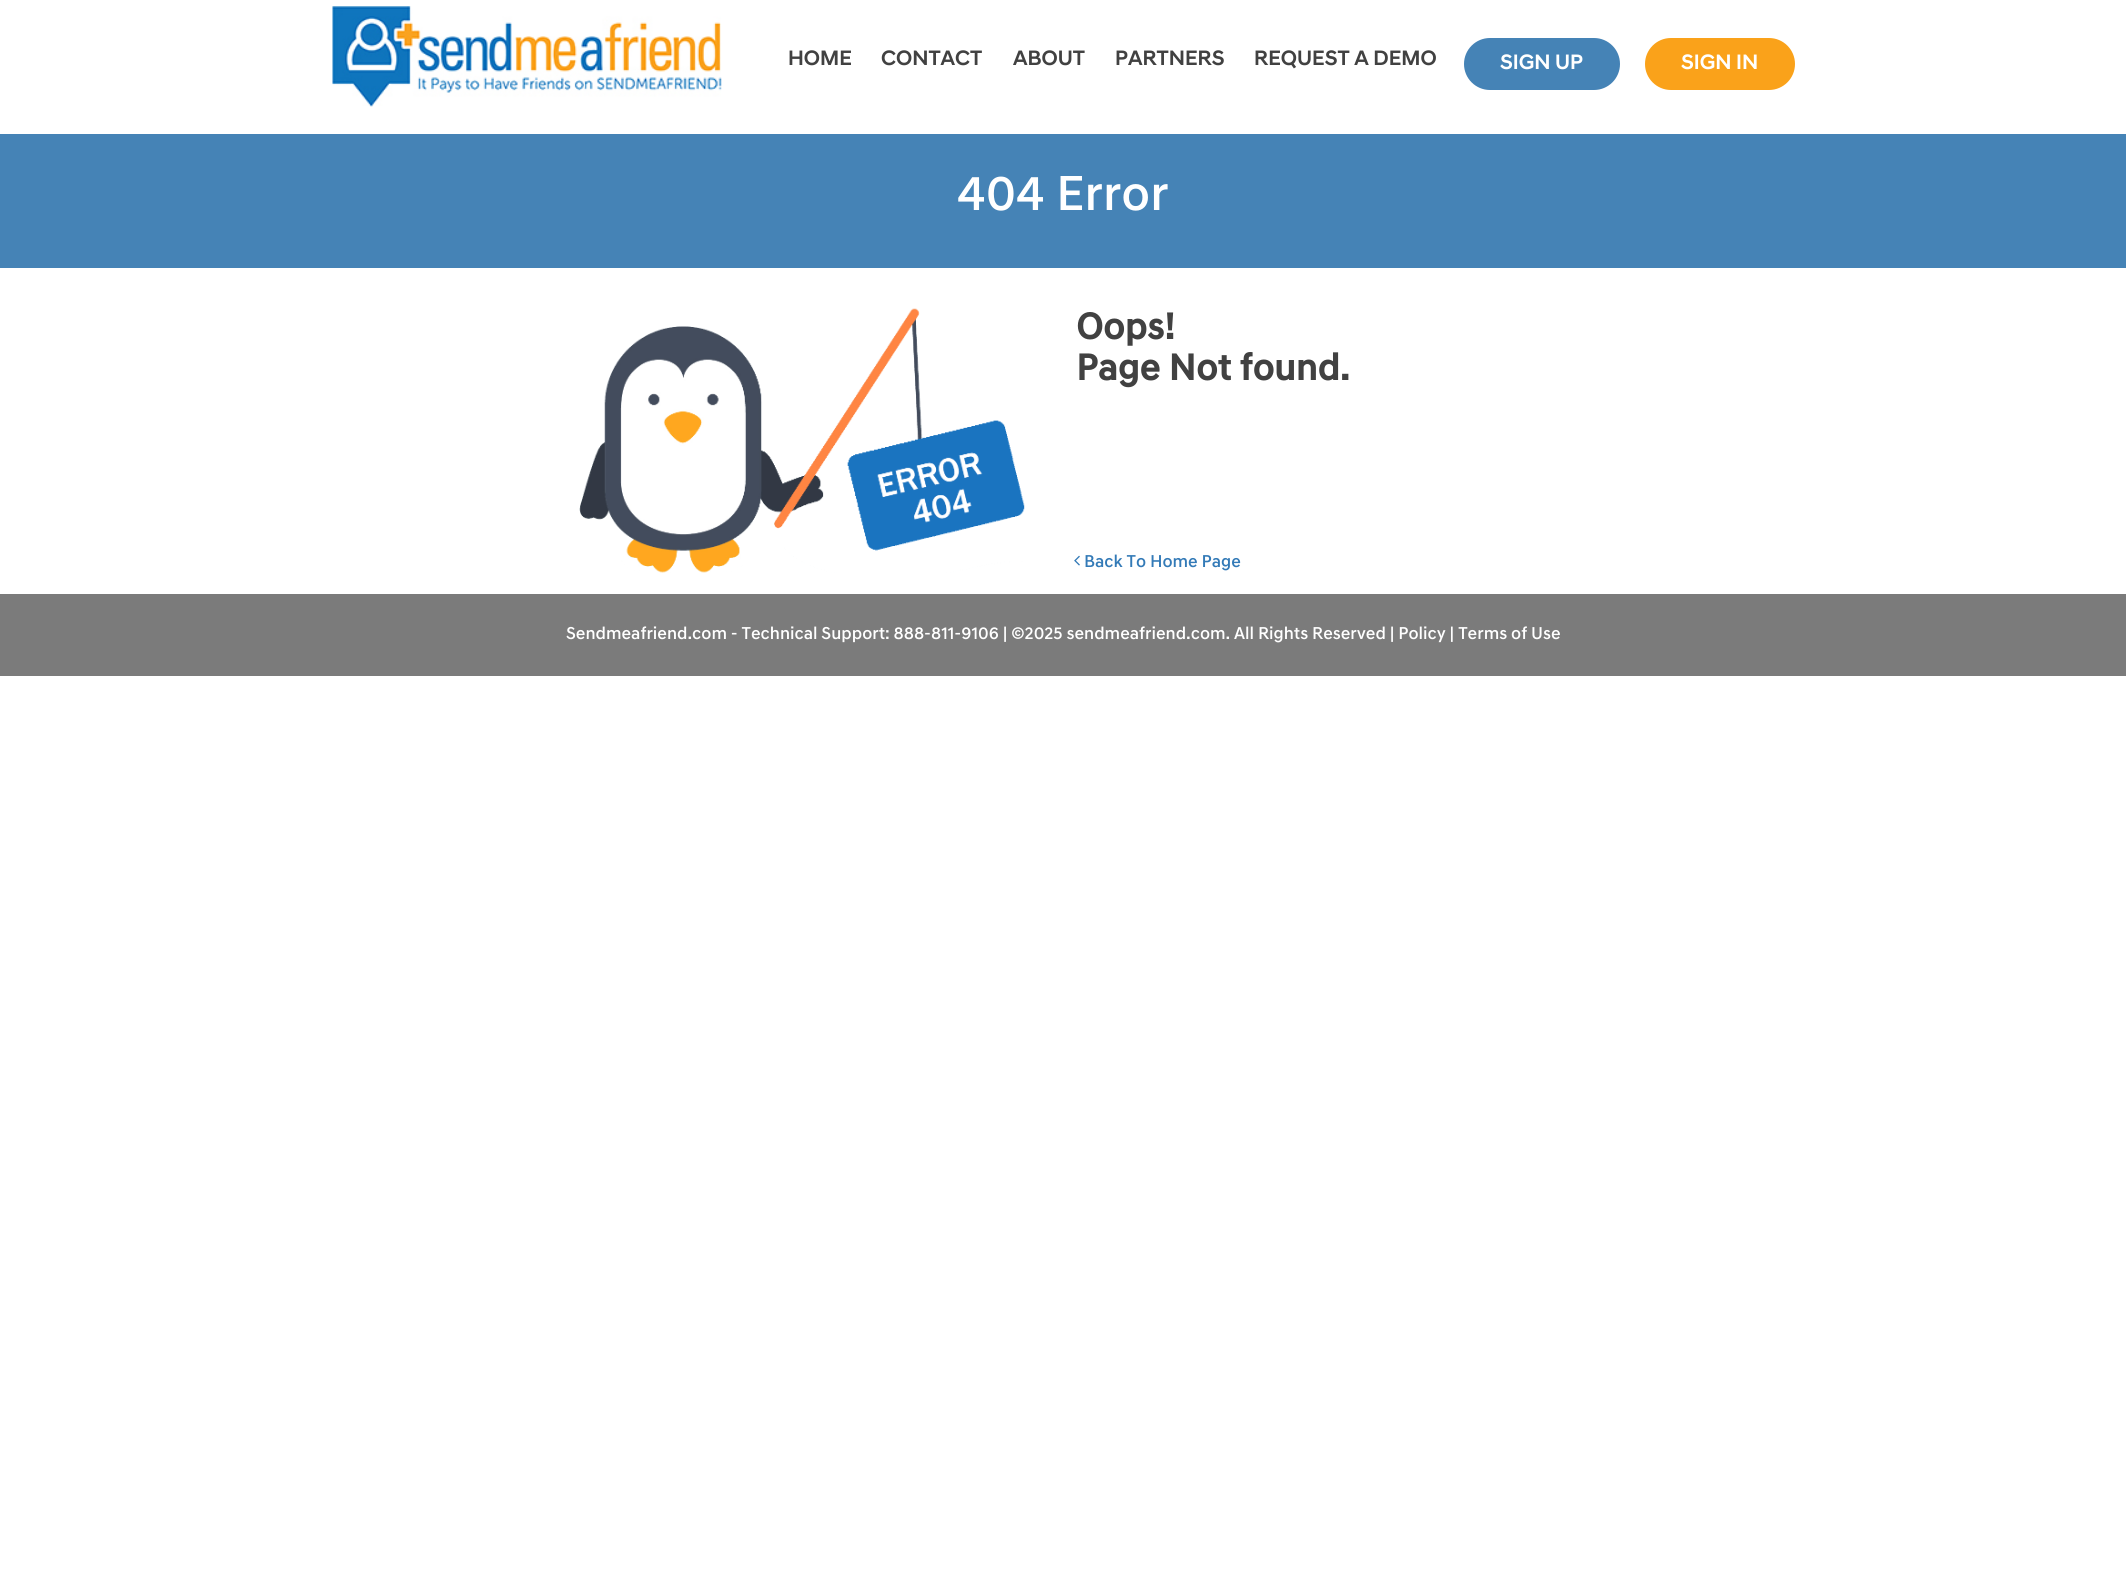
#include <cairo/cairo.h>
#include <math.h>
#include <stddef.h>

typedef struct { double x, y; const char *s; } line_t;
static cairo_t *cr;

static void rgb(unsigned color)
{
	cairo_set_source_rgb(cr, (color >> 16) / 255.0, (color >> 8 & 255) / 255.0, (color & 255) / 255.0);
}

static void rrect(double x, double y, double w, double h, double r)
{
	cairo_new_sub_path(cr);
	cairo_arc(cr, x + w - r, y + h - r, r, 0, M_PI / 2);
	cairo_arc(cr, x + r, y + h - r, r, M_PI / 2, M_PI);
	cairo_arc(cr, x + r, y + r, r, M_PI, 1.5 * M_PI);
	cairo_arc(cr, x + w - r, y + r, r, 1.5 * M_PI, 2 * M_PI);
	cairo_close_path(cr);
}

static void image(const char *path, double x, double y, double w, double h)
{
	cairo_surface_t *image = cairo_image_surface_create_from_png(path);
	cairo_save(cr);
	cairo_set_source_surface(cr, image, x, y);
	cairo_rectangle(cr, x, y, w, h);
	cairo_fill(cr);
	cairo_restore(cr);
	cairo_surface_destroy(image);
}

int main(void) {
	cairo_surface_t *surface = cairo_image_surface_create(CAIRO_FORMAT_RGB24, 2126, 1594);
	cr = cairo_create(surface);
	cairo_font_options_t *options = cairo_font_options_create();
	cairo_font_options_set_hint_metrics(options, CAIRO_HINT_METRICS_OFF);
	cairo_font_options_set_hint_style(options, CAIRO_HINT_STYLE_NONE);
	cairo_set_font_options(cr, options);
	cairo_set_miter_limit(cr, 4);
	rgb(0xffffff);
	cairo_paint(cr);
	image("img/1.png", 332, 6, 390, 101);
	rgb(0x4583b6);
	rrect(1464, 38, 156, 52, 26);
	cairo_fill(cr);
	rgb(0xfaa21a);
	rrect(1645, 38, 150, 52, 26);
	cairo_fill(cr);
	rgb(0x4583b6);
	cairo_rectangle(cr, 0, 134, 2126, 134);
	cairo_fill(cr);
	image("img/2.png", 579, 308, 446, 265);
	image("img/3.png", 1074, 555, 6, 11);
	rgb(0x7b7b7b);
	cairo_rectangle(cr, 0, 594, 2126, 82);
	cairo_fill(cr);
	cairo_select_font_face(cr, "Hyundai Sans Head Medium", CAIRO_FONT_SLANT_NORMAL, CAIRO_FONT_WEIGHT_NORMAL);
	cairo_set_font_size(cr, 21.25);
	rgb(0x414141);
	{
		static const line_t items[] = {
			{788, 65, "HOME"},
			{881, 65, "CONTACT"},
			{1013, 65, "ABOUT"},
			{1115, 65, "PARTNERS"},
			{1254, 65, "REQUEST A DEMO"},
		};
		for (size_t i = 0; i < sizeof items / sizeof *items; i++) {
			cairo_move_to(cr, items[i].x, items[i].y);
			cairo_show_text(cr, items[i].s);
		}
	}
	rgb(0xffffff);
	cairo_move_to(cr, 1500, 69);
	cairo_show_text(cr, "SIGN UP");
	cairo_move_to(cr, 1681, 69);
	cairo_show_text(cr, "SIGN IN");
	cairo_select_font_face(cr, "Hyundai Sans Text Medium", CAIRO_FONT_SLANT_NORMAL, CAIRO_FONT_WEIGHT_NORMAL);
	cairo_set_font_size(cr, 50);
	cairo_move_to(cr, 957, 210);
	cairo_show_text(cr, "404 Error");
	cairo_select_font_face(cr, "Hyundai Sans Text", CAIRO_FONT_SLANT_NORMAL, CAIRO_FONT_WEIGHT_BOLD);
	cairo_set_font_size(cr, 37.5);
	rgb(0x414141);
	cairo_move_to(cr, 1076, 339);
	cairo_show_text(cr, "Oops!");
	cairo_move_to(cr, 1076, 380);
	cairo_show_text(cr, "Page Not found.");
	cairo_select_font_face(cr, "Hyundai Sans Text Medium", CAIRO_FONT_SLANT_NORMAL, CAIRO_FONT_WEIGHT_NORMAL);
	cairo_set_font_size(cr, 17.5);
	rgb(0x337ab7);
	cairo_move_to(cr, 1084, 567);
	cairo_show_text(cr, "Back To Home Page");
	rgb(0xffffff);
	cairo_move_to(cr, 566, 639);
	cairo_show_text(cr, "Sendmeafriend.com - Technical Support: 888-811-9106 | ©2025 sendmeafriend.com. All Rights Reserved | Policy | Terms of Use");
	cairo_surface_write_to_png(surface, "page.png");
	cairo_font_options_destroy(options);
	cairo_destroy(cr);
	cairo_surface_destroy(surface);
	return 0;
}
